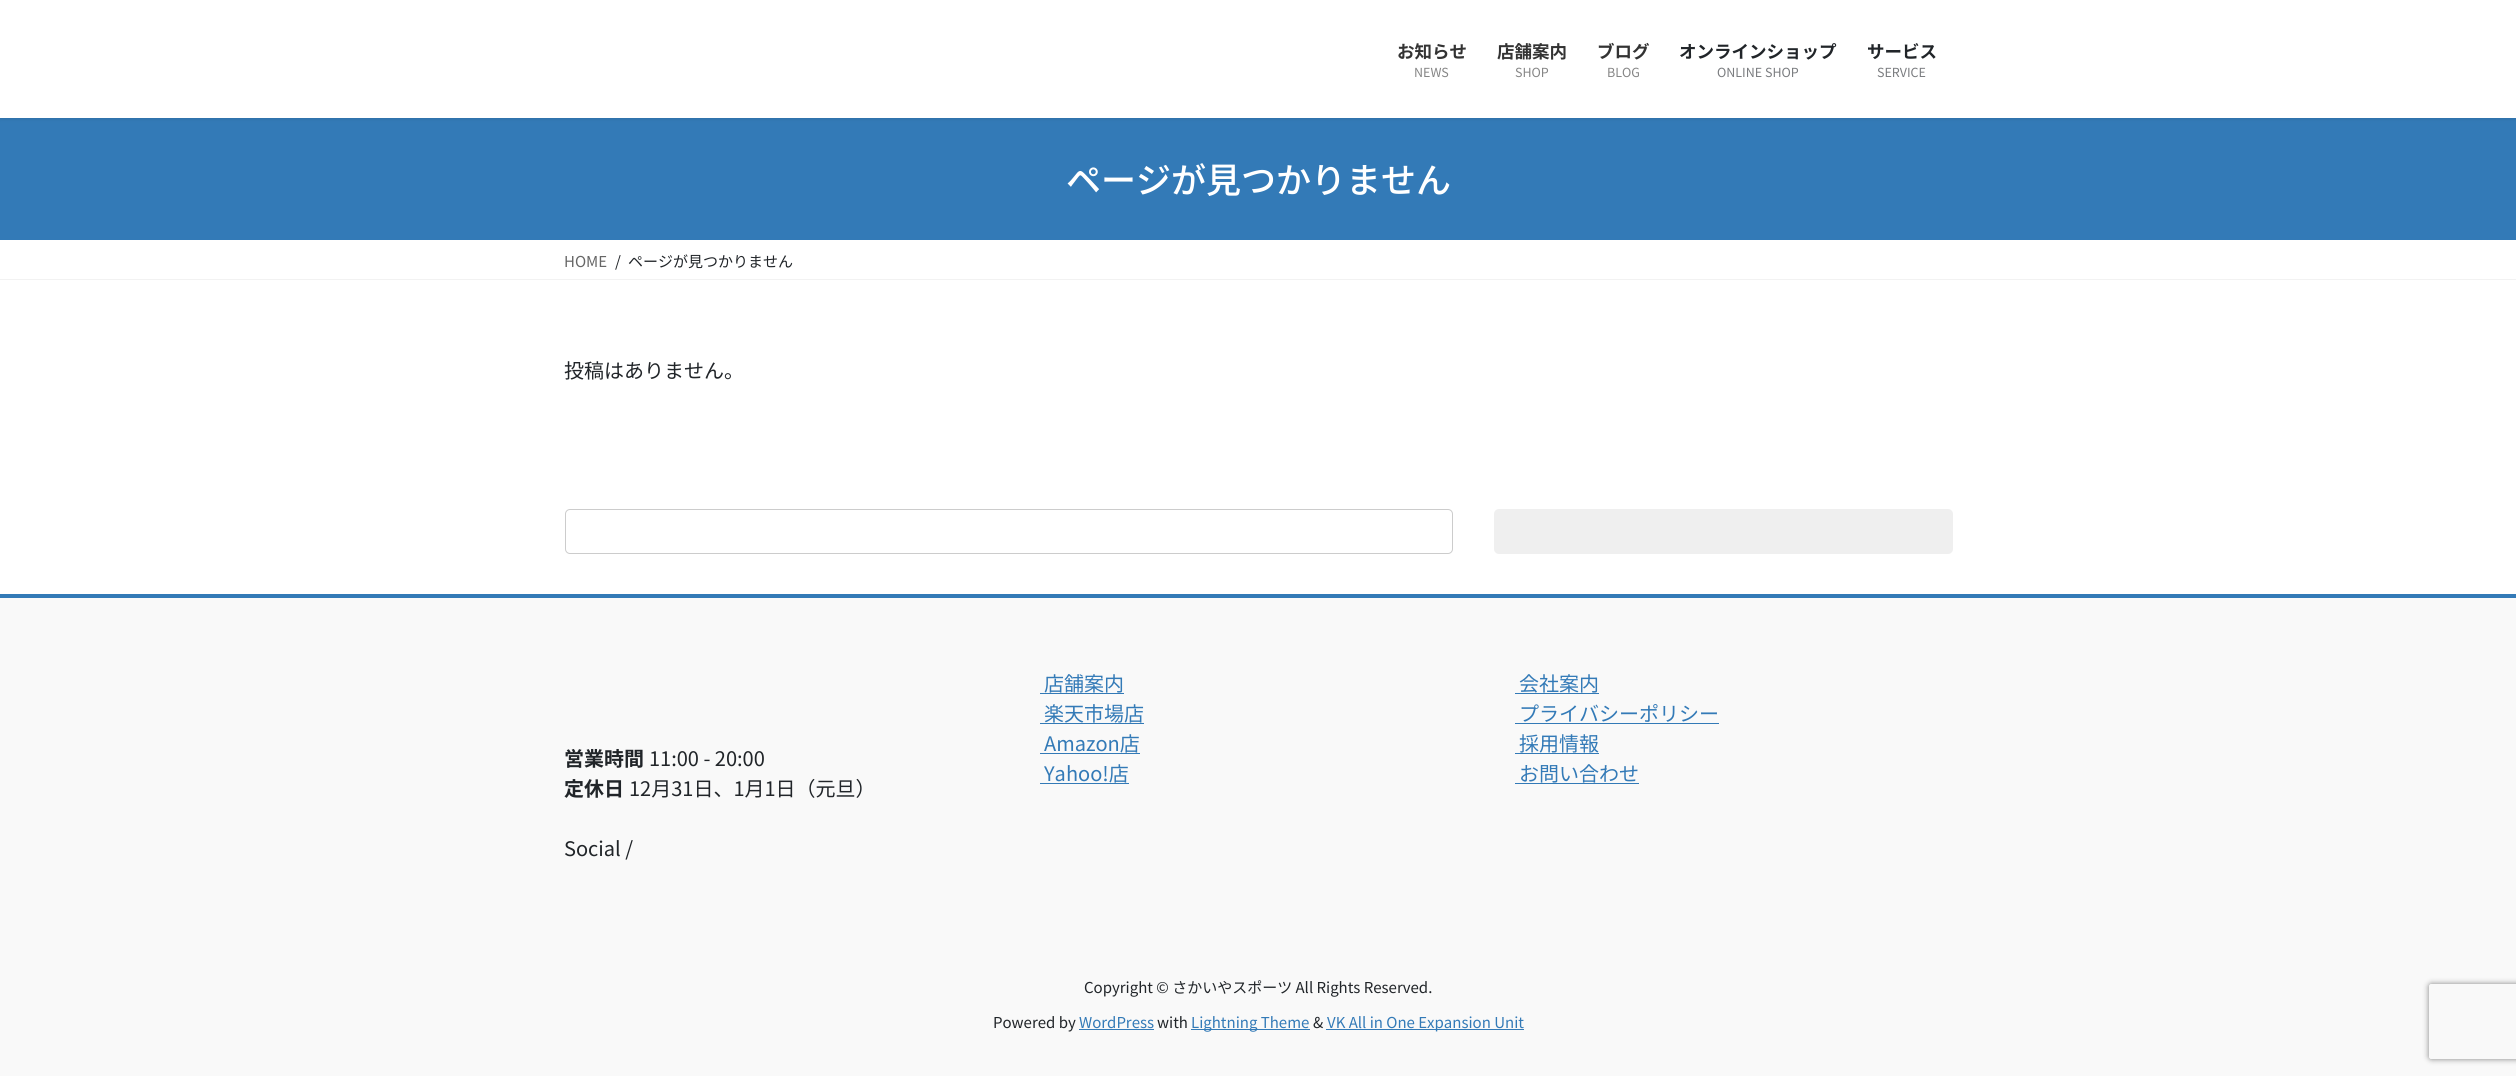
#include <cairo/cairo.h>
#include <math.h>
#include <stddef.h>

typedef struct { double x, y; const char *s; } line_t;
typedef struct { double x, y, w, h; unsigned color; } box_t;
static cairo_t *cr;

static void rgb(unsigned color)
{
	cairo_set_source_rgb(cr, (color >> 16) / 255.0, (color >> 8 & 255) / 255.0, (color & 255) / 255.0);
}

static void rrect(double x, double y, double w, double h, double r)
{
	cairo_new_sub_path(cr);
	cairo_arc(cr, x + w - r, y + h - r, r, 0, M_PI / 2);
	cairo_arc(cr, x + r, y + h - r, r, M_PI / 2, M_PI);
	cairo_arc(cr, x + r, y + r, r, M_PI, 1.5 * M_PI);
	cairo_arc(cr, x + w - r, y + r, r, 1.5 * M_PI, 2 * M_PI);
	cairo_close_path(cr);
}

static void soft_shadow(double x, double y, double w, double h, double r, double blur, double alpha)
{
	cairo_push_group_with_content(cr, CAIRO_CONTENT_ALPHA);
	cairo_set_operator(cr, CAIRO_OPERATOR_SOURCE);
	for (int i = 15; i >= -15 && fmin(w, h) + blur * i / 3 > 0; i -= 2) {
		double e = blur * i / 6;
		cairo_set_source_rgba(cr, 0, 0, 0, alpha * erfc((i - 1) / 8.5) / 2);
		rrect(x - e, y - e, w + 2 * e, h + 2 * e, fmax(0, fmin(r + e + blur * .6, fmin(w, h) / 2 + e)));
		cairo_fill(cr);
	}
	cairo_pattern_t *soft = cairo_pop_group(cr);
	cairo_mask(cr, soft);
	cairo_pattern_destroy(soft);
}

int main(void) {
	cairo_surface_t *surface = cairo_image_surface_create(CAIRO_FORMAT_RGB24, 2516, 1076);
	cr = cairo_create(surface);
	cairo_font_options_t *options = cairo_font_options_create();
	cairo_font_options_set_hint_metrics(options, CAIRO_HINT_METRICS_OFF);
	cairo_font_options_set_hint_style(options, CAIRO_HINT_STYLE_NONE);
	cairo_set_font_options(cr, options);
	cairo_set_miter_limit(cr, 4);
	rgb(0xffffff);
	cairo_paint(cr);
	rgb(0x337ab7);
	cairo_rectangle(cr, 0, 118, 2516, 122);
	cairo_fill(cr);
	rgb(0x000000);
	soft_shadow(0, 1, 2516, 118, 0, 2, 0.1);
	rgb(0xffffff);
	cairo_rectangle(cr, 0, 0, 2516, 118);
	cairo_fill(cr);
	rgb(0xf2f2f2);
	cairo_rectangle(cr, 0, 279, 2516, 1);
	cairo_fill(cr);
	rrect(565.5, 509.5, 887, 44, 4.5);
	rgb(0xcccccc);
	cairo_set_line_width(cr, 1);
	cairo_stroke(cr);
	rgb(0xefefef);
	rrect(1494, 509, 459, 45, 5);
	cairo_fill(cr);
	{
		static const box_t items[] = {
			{0, 598, 2516, 478, 0xf9f9f9},
			{0, 594, 2516, 4, 0x337ab7},
			{1040, 693, 84, 1, 0x337ab7},
			{1040, 723, 104, 1, 0x337ab7},
			{1040, 753, 100, 1, 0x337ab7},
			{1040, 783, 89, 1, 0x337ab7},
			{1515, 693, 84, 1, 0x337ab7},
			{1515, 723, 204, 1, 0x337ab7},
			{1515, 753, 84, 1, 0x337ab7},
			{1515, 783, 124, 1, 0x337ab7},
			{1079, 1029, 75, 1, 0x337ab7},
			{1191, 1029, 119, 1, 0x337ab7},
			{1326, 1029, 198, 1, 0x337ab7},
		};
		for (size_t i = 0; i < sizeof items / sizeof *items; i++) {
			rgb(items[i].color);
			cairo_rectangle(cr, items[i].x, items[i].y, items[i].w, items[i].h);
			cairo_fill(cr);
		}
	}
	cairo_save(cr);
	cairo_set_fill_rule(cr, CAIRO_FILL_RULE_EVEN_ODD);
	cairo_new_path(cr);
	cairo_move_to(cr, 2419, 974);
	cairo_line_to(cr, 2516, 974);
	cairo_line_to(cr, 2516, 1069);
	cairo_line_to(cr, 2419, 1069);
	cairo_close_path(cr);
	cairo_move_to(cr, 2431.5, 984);
	cairo_line_to(cr, 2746.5, 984);
	cairo_curve_to(cr, 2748, 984, 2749, 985, 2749, 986.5);
	cairo_line_to(cr, 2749, 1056.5);
	cairo_curve_to(cr, 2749, 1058, 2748, 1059, 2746.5, 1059);
	cairo_line_to(cr, 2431.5, 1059);
	cairo_curve_to(cr, 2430, 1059, 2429, 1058, 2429, 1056.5);
	cairo_line_to(cr, 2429, 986.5);
	cairo_curve_to(cr, 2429, 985, 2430, 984, 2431.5, 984);
	cairo_close_path(cr);
	cairo_clip(cr);
	rgb(0x808080);
	soft_shadow(2429, 984, 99, 75, 2.5, 3, 1);
	cairo_restore(cr);
	cairo_select_font_face(cr, "Noto Sans JP", CAIRO_FONT_SLANT_NORMAL, CAIRO_FONT_WEIGHT_BOLD);
	cairo_set_font_size(cr, 17.5);
	rgb(0x333333);
	cairo_move_to(cr, 1397, 58);
	cairo_show_text(cr, "お知らせ");
	cairo_select_font_face(cr, "Noto Sans JP", CAIRO_FONT_SLANT_NORMAL, CAIRO_FONT_WEIGHT_NORMAL);
	cairo_set_font_size(cr, 12.5);
	rgb(0x858585);
	cairo_move_to(cr, 1414, 77);
	cairo_show_text(cr, "NEWS");
	cairo_select_font_face(cr, "Noto Sans JP", CAIRO_FONT_SLANT_NORMAL, CAIRO_FONT_WEIGHT_BOLD);
	cairo_set_font_size(cr, 17.5);
	rgb(0x333333);
	cairo_move_to(cr, 1497, 58);
	cairo_show_text(cr, "店舗案内");
	cairo_select_font_face(cr, "Noto Sans JP", CAIRO_FONT_SLANT_NORMAL, CAIRO_FONT_WEIGHT_NORMAL);
	cairo_set_font_size(cr, 12.5);
	rgb(0x858585);
	cairo_move_to(cr, 1515, 77);
	cairo_show_text(cr, "SHOP");
	cairo_select_font_face(cr, "Noto Sans JP", CAIRO_FONT_SLANT_NORMAL, CAIRO_FONT_WEIGHT_BOLD);
	cairo_set_font_size(cr, 17.5);
	rgb(0x333333);
	cairo_move_to(cr, 1597, 58);
	cairo_show_text(cr, "ブログ");
	cairo_select_font_face(cr, "Noto Sans JP", CAIRO_FONT_SLANT_NORMAL, CAIRO_FONT_WEIGHT_NORMAL);
	cairo_set_font_size(cr, 12.5);
	rgb(0x858585);
	cairo_move_to(cr, 1607, 77);
	cairo_show_text(cr, "BLOG");
	cairo_select_font_face(cr, "Noto Sans JP", CAIRO_FONT_SLANT_NORMAL, CAIRO_FONT_WEIGHT_BOLD);
	cairo_set_font_size(cr, 17.5);
	rgb(0x212529);
	cairo_move_to(cr, 1679, 58);
	cairo_show_text(cr, "オンラインショップ");
	cairo_select_font_face(cr, "Noto Sans JP", CAIRO_FONT_SLANT_NORMAL, CAIRO_FONT_WEIGHT_NORMAL);
	cairo_set_font_size(cr, 12.5);
	rgb(0x7a7c7f);
	cairo_move_to(cr, 1717, 77);
	cairo_show_text(cr, "ONLINE SHOP");
	cairo_select_font_face(cr, "Noto Sans JP", CAIRO_FONT_SLANT_NORMAL, CAIRO_FONT_WEIGHT_BOLD);
	cairo_set_font_size(cr, 17.5);
	rgb(0x212529);
	cairo_move_to(cr, 1867, 58);
	cairo_show_text(cr, "サービス");
	cairo_select_font_face(cr, "Noto Sans JP", CAIRO_FONT_SLANT_NORMAL, CAIRO_FONT_WEIGHT_NORMAL);
	cairo_set_font_size(cr, 12.5);
	rgb(0x7a7c7f);
	cairo_move_to(cr, 1877, 77);
	cairo_show_text(cr, "SERVICE");
	cairo_select_font_face(cr, "Noto Sans JP Medium", CAIRO_FONT_SLANT_NORMAL, CAIRO_FONT_WEIGHT_NORMAL);
	cairo_set_font_size(cr, 35);
	rgb(0xffffff);
	cairo_move_to(cr, 1066, 193);
	cairo_show_text(cr, "ページが見つかりません");
	cairo_select_font_face(cr, "Noto Sans JP", CAIRO_FONT_SLANT_NORMAL, CAIRO_FONT_WEIGHT_NORMAL);
	cairo_set_font_size(cr, 15);
	rgb(0x666666);
	cairo_move_to(cr, 564, 267);
	cairo_show_text(cr, "HOME");
	rgb(0x212529);
	cairo_move_to(cr, 615, 267);
	cairo_show_text(cr, "/");
	cairo_move_to(cr, 628, 267);
	cairo_show_text(cr, "ページが見つかりません");
	cairo_set_font_size(cr, 20);
	cairo_move_to(cr, 564, 378);
	cairo_show_text(cr, "投稿はありません。");
	rgb(0x337ab7);
	{
		static const line_t items[] = {
			{1044, 691, "店舗案内"},
			{1044, 721, "楽天市場店"},
			{1044, 751, "Amazon店"},
			{1044, 781, "Yahoo!店"},
			{1519, 691, "会社案内"},
			{1519, 721, "プライバシーポリシー"},
			{1519, 751, "採用情報"},
			{1519, 781, "お問い合わせ"},
		};
		for (size_t i = 0; i < sizeof items / sizeof *items; i++) {
			cairo_move_to(cr, items[i].x, items[i].y);
			cairo_show_text(cr, items[i].s);
		}
	}
	cairo_select_font_face(cr, "Noto Sans JP", CAIRO_FONT_SLANT_NORMAL, CAIRO_FONT_WEIGHT_BOLD);
	rgb(0x212529);
	cairo_move_to(cr, 564, 766);
	cairo_show_text(cr, "営業時間");
	cairo_select_font_face(cr, "Noto Sans JP", CAIRO_FONT_SLANT_NORMAL, CAIRO_FONT_WEIGHT_NORMAL);
	cairo_move_to(cr, 649, 766);
	cairo_show_text(cr, "11:00 - 20:00");
	cairo_select_font_face(cr, "Noto Sans JP", CAIRO_FONT_SLANT_NORMAL, CAIRO_FONT_WEIGHT_BOLD);
	cairo_move_to(cr, 564, 796);
	cairo_show_text(cr, "定休日");
	cairo_select_font_face(cr, "Noto Sans JP", CAIRO_FONT_SLANT_NORMAL, CAIRO_FONT_WEIGHT_NORMAL);
	cairo_move_to(cr, 629, 796);
	cairo_show_text(cr, "12月31日、1月1日（元旦）");
	cairo_move_to(cr, 564, 856);
	cairo_show_text(cr, "Social /");
	cairo_set_font_size(cr, 15);
	cairo_move_to(cr, 1084, 993);
	cairo_show_text(cr, "Copyright © さかいやスポーツ All Rights Reserved.");
	cairo_move_to(cr, 993, 1028);
	cairo_show_text(cr, "Powered by");
	rgb(0x337ab7);
	cairo_move_to(cr, 1079, 1028);
	cairo_show_text(cr, "WordPress");
	rgb(0x212529);
	cairo_move_to(cr, 1157, 1028);
	cairo_show_text(cr, "with");
	rgb(0x337ab7);
	cairo_move_to(cr, 1191, 1028);
	cairo_show_text(cr, "Lightning Theme");
	rgb(0x212529);
	cairo_move_to(cr, 1313, 1028);
	cairo_show_text(cr, "&");
	rgb(0x337ab7);
	cairo_move_to(cr, 1327, 1028);
	cairo_show_text(cr, "VK All in One Expansion Unit");
	cairo_surface_write_to_png(surface, "page.png");
	cairo_font_options_destroy(options);
	cairo_destroy(cr);
	cairo_surface_destroy(surface);
	return 0;
}
